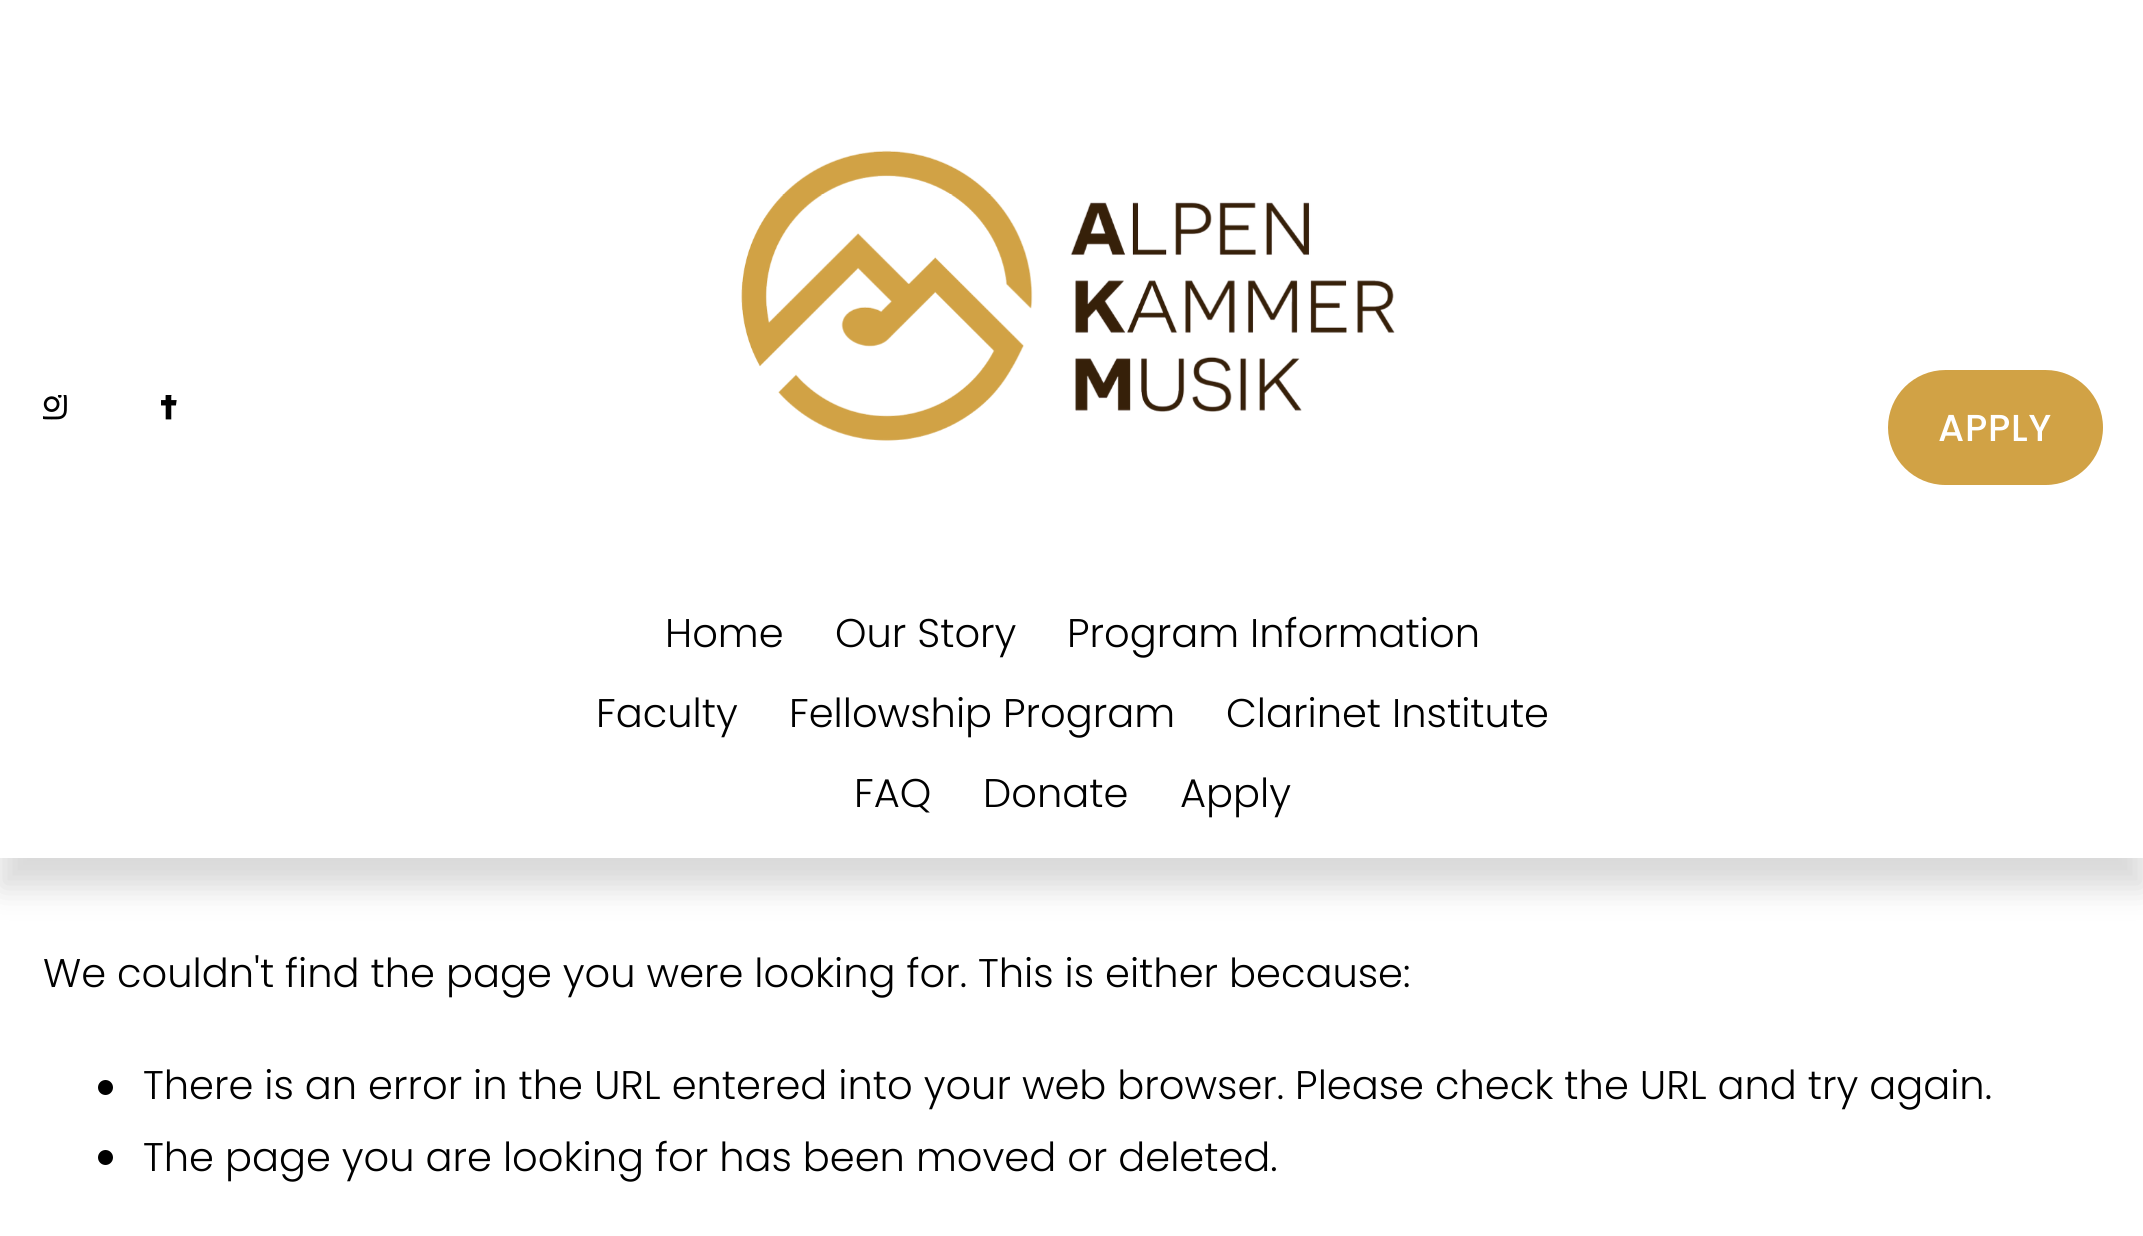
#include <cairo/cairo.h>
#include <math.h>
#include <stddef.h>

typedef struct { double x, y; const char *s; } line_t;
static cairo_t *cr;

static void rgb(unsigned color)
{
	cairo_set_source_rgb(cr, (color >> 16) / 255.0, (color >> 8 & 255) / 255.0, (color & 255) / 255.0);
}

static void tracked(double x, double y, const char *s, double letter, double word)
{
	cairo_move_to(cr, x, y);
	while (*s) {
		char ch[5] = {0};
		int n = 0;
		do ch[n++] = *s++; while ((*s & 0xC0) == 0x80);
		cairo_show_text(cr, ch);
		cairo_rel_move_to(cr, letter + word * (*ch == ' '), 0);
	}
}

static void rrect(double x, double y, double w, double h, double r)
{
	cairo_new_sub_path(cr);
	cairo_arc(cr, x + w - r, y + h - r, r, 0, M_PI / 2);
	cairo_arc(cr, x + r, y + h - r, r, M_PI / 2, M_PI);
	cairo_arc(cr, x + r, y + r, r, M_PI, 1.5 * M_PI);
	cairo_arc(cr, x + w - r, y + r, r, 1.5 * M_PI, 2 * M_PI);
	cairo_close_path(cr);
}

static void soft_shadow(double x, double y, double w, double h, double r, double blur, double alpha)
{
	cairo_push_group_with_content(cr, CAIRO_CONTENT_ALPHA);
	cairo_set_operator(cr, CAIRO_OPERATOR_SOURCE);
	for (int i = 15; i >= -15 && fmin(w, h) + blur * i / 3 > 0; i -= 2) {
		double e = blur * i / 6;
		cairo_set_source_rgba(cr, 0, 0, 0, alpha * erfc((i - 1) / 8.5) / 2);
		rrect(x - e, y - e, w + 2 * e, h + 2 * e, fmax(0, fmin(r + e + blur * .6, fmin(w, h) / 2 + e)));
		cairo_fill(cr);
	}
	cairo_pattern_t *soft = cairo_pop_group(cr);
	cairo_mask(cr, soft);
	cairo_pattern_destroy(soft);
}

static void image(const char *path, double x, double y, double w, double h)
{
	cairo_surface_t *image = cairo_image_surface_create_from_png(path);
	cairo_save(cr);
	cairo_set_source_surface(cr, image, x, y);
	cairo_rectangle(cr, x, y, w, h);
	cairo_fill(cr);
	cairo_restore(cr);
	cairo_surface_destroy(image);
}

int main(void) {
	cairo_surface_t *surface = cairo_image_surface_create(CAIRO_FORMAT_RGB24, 2143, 1236);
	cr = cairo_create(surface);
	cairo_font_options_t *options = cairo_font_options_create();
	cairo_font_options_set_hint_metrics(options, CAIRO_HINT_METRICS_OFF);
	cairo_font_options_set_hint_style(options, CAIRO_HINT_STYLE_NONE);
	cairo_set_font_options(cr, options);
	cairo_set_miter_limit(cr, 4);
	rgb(0xffffff);
	cairo_paint(cr);
	cairo_save(cr);
	cairo_set_fill_rule(cr, CAIRO_FILL_RULE_EVEN_ODD);
	cairo_new_path(cr);
	cairo_move_to(cr, 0, 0);
	cairo_line_to(cr, 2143, 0);
	cairo_line_to(cr, 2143, 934);
	cairo_line_to(cr, 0, 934);
	cairo_close_path(cr);
	cairo_move_to(cr, 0, 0);
	cairo_line_to(cr, 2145, 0);
	cairo_line_to(cr, 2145, 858);
	cairo_line_to(cr, 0, 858);
	cairo_close_path(cr);
	cairo_clip(cr);
	rgb(0xd9d9d9);
	soft_shadow(0, 30, 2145, 858, 0, 15, 1);
	cairo_restore(cr);
	image("img/1.png", 43, 395, 24, 25);
	image("img/2.png", 161, 395, 16, 25);
	rgb(0xd1a245);
	rrect(1888, 370, 215, 115, 57.5);
	cairo_fill(cr);
	image("img/3.png", 741, 150, 654, 291);
	rgb(0x000000);
	cairo_arc(cr, 105.5, 1087.5, 7.5, 0, 2 * M_PI);
	cairo_fill(cr);
	cairo_arc(cr, 105.5, 1157.5, 7.5, 0, 2 * M_PI);
	cairo_fill(cr);
	cairo_select_font_face(cr, "Poppins Medium", CAIRO_FONT_SLANT_NORMAL, CAIRO_FONT_WEIGHT_NORMAL);
	cairo_set_font_size(cr, 37.5);
	rgb(0xffffff);
	tracked(1938, 441, "APPLY", 0.75, 0);
	cairo_select_font_face(cr, "Poppins Light", CAIRO_FONT_SLANT_NORMAL, CAIRO_FONT_WEIGHT_NORMAL);
	cairo_set_font_size(cr, 40);
	rgb(0x000000);
	{
		static const line_t items[] = {
			{665, 647, "Home"},
			{835, 647, "Our Story"},
			{1067, 647, "Program Information"},
			{596, 727, "Faculty"},
			{789, 727, "Fellowship Program"},
			{1226, 727, "Clarinet Institute"},
			{854, 807, "FAQ"},
			{983, 807, "Donate"},
			{1180, 807, "Apply"},
			{43, 987, "We couldn't find the page you were looking for. This is either because:"},
			{143, 1099, "There is an error in the URL entered into your web browser. Please check the URL and try again."},
			{143, 1171, "The page you are looking for has been moved or deleted."},
		};
		for (size_t i = 0; i < sizeof items / sizeof *items; i++) {
			cairo_move_to(cr, items[i].x, items[i].y);
			cairo_show_text(cr, items[i].s);
		}
	}
	cairo_surface_write_to_png(surface, "page.png");
	cairo_font_options_destroy(options);
	cairo_destroy(cr);
	cairo_surface_destroy(surface);
	return 0;
}
